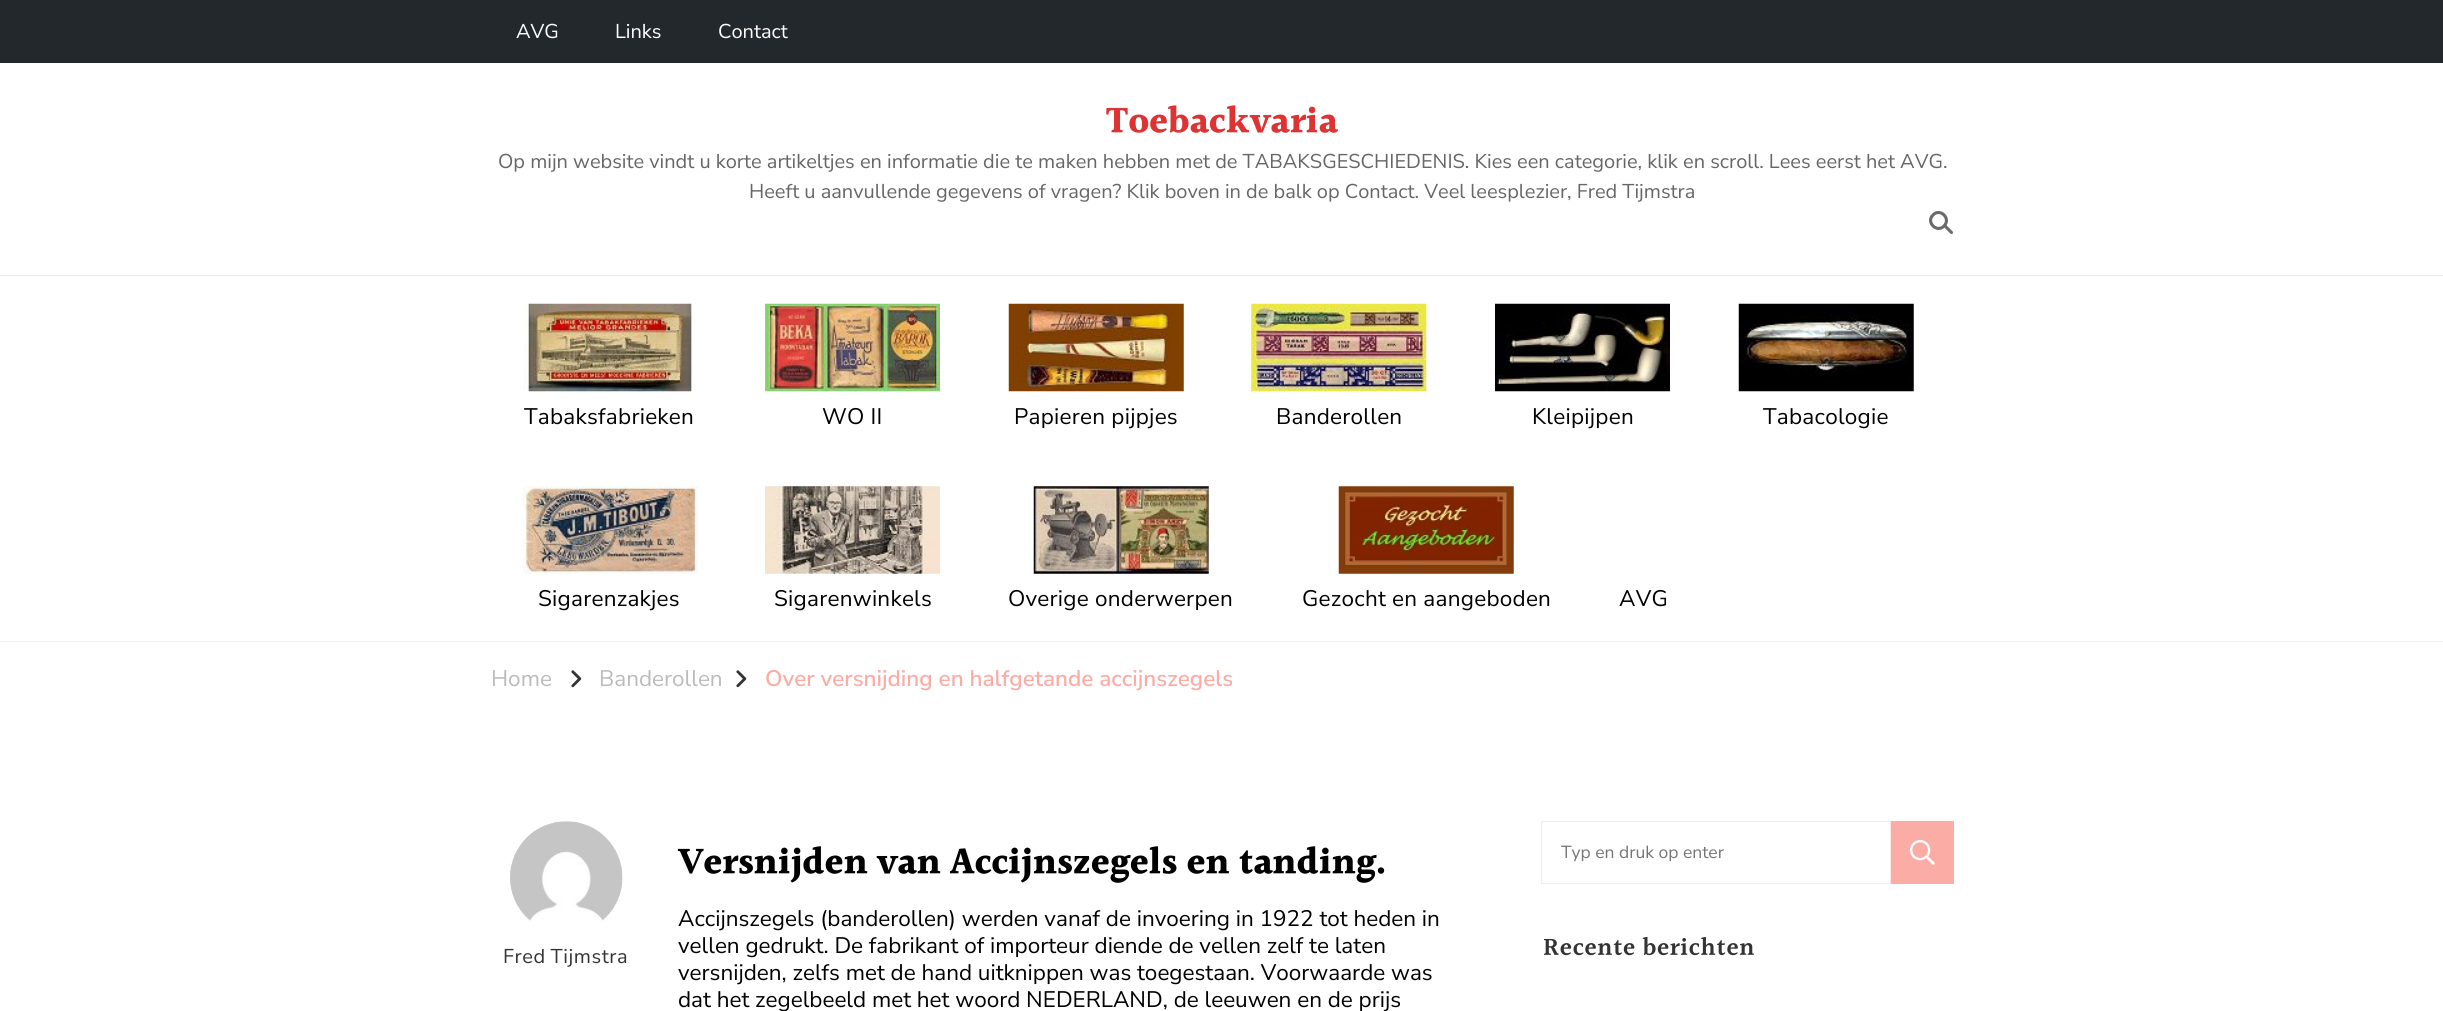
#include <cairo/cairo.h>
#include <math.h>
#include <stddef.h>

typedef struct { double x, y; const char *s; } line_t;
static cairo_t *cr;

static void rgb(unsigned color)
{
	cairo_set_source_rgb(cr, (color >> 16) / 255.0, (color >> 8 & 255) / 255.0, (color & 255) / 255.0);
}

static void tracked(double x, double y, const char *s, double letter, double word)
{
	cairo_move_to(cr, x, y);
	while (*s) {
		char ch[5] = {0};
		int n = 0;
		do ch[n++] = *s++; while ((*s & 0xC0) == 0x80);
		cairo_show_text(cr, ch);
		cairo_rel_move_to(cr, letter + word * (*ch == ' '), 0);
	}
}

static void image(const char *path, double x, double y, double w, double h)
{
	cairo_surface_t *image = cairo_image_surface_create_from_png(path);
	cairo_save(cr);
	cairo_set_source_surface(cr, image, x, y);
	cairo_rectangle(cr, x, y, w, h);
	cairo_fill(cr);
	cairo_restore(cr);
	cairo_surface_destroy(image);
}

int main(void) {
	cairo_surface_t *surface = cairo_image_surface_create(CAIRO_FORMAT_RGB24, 2443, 1011);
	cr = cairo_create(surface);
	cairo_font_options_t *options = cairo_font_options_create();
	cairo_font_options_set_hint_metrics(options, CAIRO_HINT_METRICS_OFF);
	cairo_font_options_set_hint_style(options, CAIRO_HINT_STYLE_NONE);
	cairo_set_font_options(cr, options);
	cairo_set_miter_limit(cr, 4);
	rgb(0xffffff);
	cairo_paint(cr);
	rgb(0x23282d);
	cairo_rectangle(cr, 0, 0, 2443, 63);
	cairo_fill(cr);
	rgb(0xfee2e0);
	cairo_rectangle(cr, 0, 275, 2443, 1);
	cairo_fill(cr);
	cairo_new_path(cr);
	cairo_move_to(cr, 1933, 215);
	cairo_curve_to(cr, 1940, 207.5, 1951.5, 218.5, 1944, 226);
	cairo_curve_to(cr, 1937, 233.5, 1925.5, 222, 1933, 215);
	cairo_close_path(cr);
	rgb(0x6a6a6a);
	cairo_set_line_width(cr, 3.1);
	cairo_stroke(cr);
	cairo_new_path(cr);
	cairo_move_to(cr, 1945, 226);
	cairo_line_to(cr, 1951.5, 232.5);
	cairo_set_line_cap(cr, CAIRO_LINE_CAP_ROUND);
	cairo_stroke(cr);
	image("img/1.png", 523, 303, 171, 89);
	image("img/2.png", 765, 303, 175, 89);
	image("img/3.png", 1008, 303, 176, 89);
	image("img/4.png", 1251, 303, 176, 89);
	image("img/5.png", 1495, 303, 175, 89);
	image("img/6.png", 1738, 303, 176, 89);
	image("img/7.png", 522, 486, 176, 88);
	image("img/8.png", 765, 486, 175, 88);
	image("img/9.png", 1033, 486, 176, 88);
	image("img/10.png", 1338, 486, 176, 88);
	rgb(0xfeeeed);
	cairo_rectangle(cr, 0, 641, 2443, 1);
	cairo_fill(cr);
	image("img/11.png", 571, 670, 11, 18);
	image("img/11.png", 736, 670, 11, 18);
	image("img/12.png", 510, 821, 113, 100);
	cairo_rectangle(cr, 1541.5, 821.5, 349, 62);
	rgb(0xfee6e4);
	cairo_set_line_width(cr, 1);
	cairo_set_line_cap(cr, CAIRO_LINE_CAP_BUTT);
	cairo_stroke(cr);
	rgb(0xfbaca5);
	cairo_rectangle(cr, 1891, 821, 63, 63);
	cairo_fill(cr);
	image("img/13.png", 1910, 840, 25, 25);
	cairo_select_font_face(cr, "Nunito Sans", CAIRO_FONT_SLANT_NORMAL, CAIRO_FONT_WEIGHT_NORMAL);
	cairo_set_font_size(cr, 20);
	rgb(0xffffff);
	{
		static const line_t items[] = {
			{516, 38, "AVG"},
			{615, 38, "Links"},
			{718, 38, "Contact"},
		};
		for (size_t i = 0; i < sizeof items / sizeof *items; i++) {
			cairo_move_to(cr, items[i].x, items[i].y);
			cairo_show_text(cr, items[i].s);
		}
	}
	cairo_select_font_face(cr, "Halant", CAIRO_FONT_SLANT_NORMAL, CAIRO_FONT_WEIGHT_BOLD);
	cairo_set_font_size(cr, 37.5);
	rgb(0xdd3333);
	tracked(1106, 134, "Toebackvaria", 0.25, 0);
	cairo_select_font_face(cr, "Nunito Sans", CAIRO_FONT_SLANT_NORMAL, CAIRO_FONT_WEIGHT_NORMAL);
	cairo_set_font_size(cr, 20);
	rgb(0x666666);
	cairo_move_to(cr, 498, 168);
	cairo_show_text(cr, "Op mijn website vindt u korte artikeltjes en informatie die te maken hebben met de TABAKSGESCHIEDENIS. Kies een categorie, klik en scroll. Lees eerst het AVG.");
	cairo_move_to(cr, 749, 198);
	cairo_show_text(cr, "Heeft u aanvullende gegevens of vragen? Klik boven in de balk op Contact. Veel leesplezier, Fred Tijmstra");
	cairo_set_font_size(cr, 22.5);
	rgb(0x000000);
	{
		static const line_t items[] = {
			{524, 424, "Tabaksfabrieken"},
			{822, 424, "WO II"},
			{1014, 424, "Papieren pijpjes"},
			{1276, 424, "Banderollen"},
			{1532, 424, "Kleipijpen"},
			{1763, 424, "Tabacologie"},
			{538, 606, "Sigarenzakjes"},
			{774, 606, "Sigarenwinkels"},
			{1008, 606, "Overige onderwerpen"},
			{1302, 606, "Gezocht en aangeboden"},
			{1619, 606, "AVG"},
		};
		for (size_t i = 0; i < sizeof items / sizeof *items; i++) {
			tracked(items[i].x, items[i].y, items[i].s, 0.25, 0);
		}
	}
	rgb(0xbbbbbb);
	cairo_move_to(cr, 491, 686);
	cairo_show_text(cr, "Home");
	cairo_move_to(cr, 599, 686);
	cairo_show_text(cr, "Banderollen");
	cairo_select_font_face(cr, "Nunito Sans SemiBold", CAIRO_FONT_SLANT_NORMAL, CAIRO_FONT_WEIGHT_NORMAL);
	rgb(0xfbaca5);
	cairo_move_to(cr, 765, 686);
	cairo_show_text(cr, "Over versnijding en halfgetande accijnszegels");
	cairo_select_font_face(cr, "Nunito Sans", CAIRO_FONT_SLANT_NORMAL, CAIRO_FONT_WEIGHT_NORMAL);
	cairo_set_font_size(cr, 20);
	rgb(0x333333);
	tracked(503, 963, "Fred Tijmstra", 0.6, -1);
	cairo_select_font_face(cr, "Halant", CAIRO_FONT_SLANT_NORMAL, CAIRO_FONT_WEIGHT_BOLD);
	cairo_set_font_size(cr, 37.6);
	rgb(0x000000);
	cairo_move_to(cr, 678, 875);
	cairo_show_text(cr, "Versnijden van Accijnszegels en tanding.");
	cairo_select_font_face(cr, "Nunito Sans", CAIRO_FONT_SLANT_NORMAL, CAIRO_FONT_WEIGHT_NORMAL);
	cairo_set_font_size(cr, 22.5);
	{
		static const line_t items[] = {
			{678, 926, "Accijnszegels (banderollen) werden vanaf de invoering in 1922 tot heden in"},
			{678, 953, "vellen gedrukt. De fabrikant of importeur diende de vellen zelf te laten"},
			{678, 980, "versnijden, zelfs met de hand uitknippen was toegestaan. Voorwaarde was"},
			{678, 1007, "dat het zegelbeeld met het woord NEDERLAND, de leeuwen en de prijs"},
		};
		for (size_t i = 0; i < sizeof items / sizeof *items; i++) {
			cairo_move_to(cr, items[i].x, items[i].y);
			cairo_show_text(cr, items[i].s);
		}
	}
	cairo_set_font_size(cr, 17.5);
	rgb(0x757575);
	cairo_move_to(cr, 1561, 858);
	cairo_show_text(cr, "Typ en druk op enter");
	cairo_select_font_face(cr, "Halant SemiBold", CAIRO_FONT_SLANT_NORMAL, CAIRO_FONT_WEIGHT_NORMAL);
	cairo_set_font_size(cr, 25);
	rgb(0x333333);
	tracked(1543, 956, "Recente berichten", 0.6, 0);
	cairo_surface_write_to_png(surface, "page.png");
	cairo_font_options_destroy(options);
	cairo_destroy(cr);
	cairo_surface_destroy(surface);
	return 0;
}
